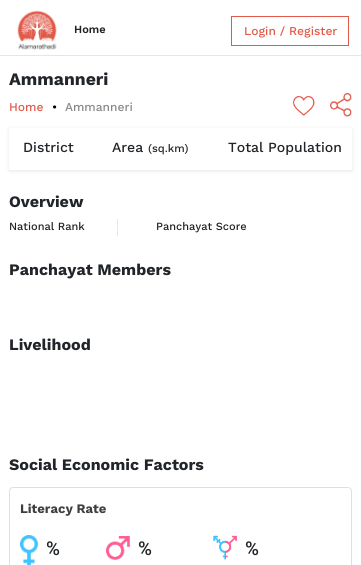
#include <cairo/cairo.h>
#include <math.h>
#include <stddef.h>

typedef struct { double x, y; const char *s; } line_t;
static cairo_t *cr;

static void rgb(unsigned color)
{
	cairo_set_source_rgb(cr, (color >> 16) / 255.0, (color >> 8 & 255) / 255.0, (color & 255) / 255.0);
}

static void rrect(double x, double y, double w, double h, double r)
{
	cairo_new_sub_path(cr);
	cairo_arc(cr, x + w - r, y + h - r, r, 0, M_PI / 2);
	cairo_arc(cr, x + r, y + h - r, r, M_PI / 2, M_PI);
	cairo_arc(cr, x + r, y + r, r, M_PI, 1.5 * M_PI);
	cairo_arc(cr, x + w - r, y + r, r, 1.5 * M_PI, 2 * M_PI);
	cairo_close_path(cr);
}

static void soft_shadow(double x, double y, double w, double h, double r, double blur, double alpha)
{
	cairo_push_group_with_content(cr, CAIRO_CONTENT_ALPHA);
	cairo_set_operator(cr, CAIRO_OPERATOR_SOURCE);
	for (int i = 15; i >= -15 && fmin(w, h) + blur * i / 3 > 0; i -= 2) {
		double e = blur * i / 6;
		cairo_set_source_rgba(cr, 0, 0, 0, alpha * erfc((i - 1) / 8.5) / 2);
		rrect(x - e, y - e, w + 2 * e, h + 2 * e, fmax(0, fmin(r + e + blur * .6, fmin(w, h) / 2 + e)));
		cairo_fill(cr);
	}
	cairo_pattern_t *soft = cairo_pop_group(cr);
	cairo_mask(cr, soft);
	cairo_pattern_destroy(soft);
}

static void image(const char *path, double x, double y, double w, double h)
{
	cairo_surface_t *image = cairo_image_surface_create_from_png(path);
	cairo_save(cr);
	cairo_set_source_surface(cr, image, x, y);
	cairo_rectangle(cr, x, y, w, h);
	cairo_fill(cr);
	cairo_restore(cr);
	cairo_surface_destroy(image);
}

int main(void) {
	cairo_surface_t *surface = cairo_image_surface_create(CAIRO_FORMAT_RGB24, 361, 565);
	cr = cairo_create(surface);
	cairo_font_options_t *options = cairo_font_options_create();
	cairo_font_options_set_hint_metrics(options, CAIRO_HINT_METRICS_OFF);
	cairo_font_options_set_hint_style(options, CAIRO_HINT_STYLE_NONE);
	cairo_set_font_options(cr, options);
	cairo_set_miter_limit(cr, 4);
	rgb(0xffffff);
	cairo_paint(cr);
	rgb(0xe6e6e6);
	cairo_rectangle(cr, 0, 55, 361, 1);
	cairo_fill(cr);
	image("img/1.png", 17, 10, 40, 40);
	cairo_rectangle(cr, 231.5, 16.5, 117, 29);
	rgb(0xe1594a);
	cairo_set_line_width(cr, 1);
	cairo_stroke(cr);
	image("img/2.png", 293, 96, 22, 20);
	image("img/3.png", 330, 93, 22, 24);
	cairo_save(cr);
	cairo_set_fill_rule(cr, CAIRO_FILL_RULE_EVEN_ODD);
	cairo_new_path(cr);
	cairo_move_to(cr, 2, 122);
	cairo_line_to(cr, 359, 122);
	cairo_line_to(cr, 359, 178);
	cairo_line_to(cr, 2, 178);
	cairo_close_path(cr);
	cairo_move_to(cr, 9, 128);
	cairo_line_to(cr, 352, 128);
	cairo_line_to(cr, 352, 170);
	cairo_line_to(cr, 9, 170);
	cairo_close_path(cr);
	cairo_clip(cr);
	rgb(0x000000);
	soft_shadow(9, 129, 343, 42, 0, 2, 0.1);
	cairo_restore(cr);
	rgb(0xe8e8e8);
	cairo_rectangle(cr, 117, 219, 1, 17);
	cairo_fill(cr);
	rrect(9.5, 487.5, 342, 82, 3.5);
	rgb(0xdfdfdf);
	cairo_stroke(cr);
	image("img/4.png", 20, 535, 18, 30);
	image("img/5.png", 106, 536, 24, 24);
	image("img/6.png", 213, 535, 24, 25);
	cairo_select_font_face(cr, "Work Sans SemiBold", CAIRO_FONT_SLANT_NORMAL, CAIRO_FONT_WEIGHT_NORMAL);
	cairo_set_font_size(cr, 11);
	rgb(0x212121);
	cairo_move_to(cr, 74, 33);
	cairo_show_text(cr, "Home");
	cairo_select_font_face(cr, "Work Sans Medium", CAIRO_FONT_SLANT_NORMAL, CAIRO_FONT_WEIGHT_NORMAL);
	cairo_set_font_size(cr, 12);
	rgb(0xe1594a);
	cairo_move_to(cr, 244, 35);
	cairo_show_text(cr, "Login / Register");
	cairo_select_font_face(cr, "Work Sans", CAIRO_FONT_SLANT_NORMAL, CAIRO_FONT_WEIGHT_BOLD);
	cairo_set_font_size(cr, 17.5);
	rgb(0x212529);
	cairo_move_to(cr, 9, 85);
	cairo_show_text(cr, "Ammanneri");
	cairo_select_font_face(cr, "Work Sans Medium", CAIRO_FONT_SLANT_NORMAL, CAIRO_FONT_WEIGHT_NORMAL);
	cairo_set_font_size(cr, 12);
	rgb(0xe1594a);
	cairo_move_to(cr, 9, 111);
	cairo_show_text(cr, "Home");
	rgb(0x000000);
	cairo_move_to(cr, 52, 111);
	cairo_show_text(cr, "•");
	rgb(0x888888);
	cairo_move_to(cr, 65, 111);
	cairo_show_text(cr, "Ammanneri");
	cairo_set_font_size(cr, 14);
	rgb(0x212529);
	cairo_move_to(cr, 23, 152);
	cairo_show_text(cr, "District");
	cairo_move_to(cr, 112, 152);
	cairo_show_text(cr, "Area");
	cairo_set_font_size(cr, 11);
	cairo_move_to(cr, 148, 152);
	cairo_show_text(cr, "(sq.km)");
	cairo_set_font_size(cr, 14);
	cairo_move_to(cr, 228, 152);
	cairo_show_text(cr, "Total Population");
	cairo_select_font_face(cr, "Work Sans", CAIRO_FONT_SLANT_NORMAL, CAIRO_FONT_WEIGHT_BOLD);
	cairo_set_font_size(cr, 16);
	cairo_move_to(cr, 9, 207);
	cairo_show_text(cr, "Overview");
	cairo_select_font_face(cr, "Work Sans Medium", CAIRO_FONT_SLANT_NORMAL, CAIRO_FONT_WEIGHT_NORMAL);
	cairo_set_font_size(cr, 11);
	rgb(0x212121);
	cairo_move_to(cr, 9, 230);
	cairo_show_text(cr, "National Rank");
	cairo_move_to(cr, 156, 230);
	cairo_show_text(cr, "Panchayat Score");
	cairo_select_font_face(cr, "Work Sans", CAIRO_FONT_SLANT_NORMAL, CAIRO_FONT_WEIGHT_BOLD);
	cairo_set_font_size(cr, 16);
	rgb(0x212529);
	{
		static const line_t items[] = {
			{9, 275, "Panchayat Members"},
			{9, 350, "Livelihood"},
			{9, 470, "Social Economic Factors"},
		};
		for (size_t i = 0; i < sizeof items / sizeof *items; i++) {
			cairo_move_to(cr, items[i].x, items[i].y);
			cairo_show_text(cr, items[i].s);
		}
	}
	cairo_set_font_size(cr, 13);
	rgb(0x3f3f3f);
	cairo_move_to(cr, 20, 513);
	cairo_show_text(cr, "Literacy Rate");
	cairo_select_font_face(cr, "Roboto Medium", CAIRO_FONT_SLANT_NORMAL, CAIRO_FONT_WEIGHT_NORMAL);
	cairo_set_font_size(cr, 19);
	rgb(0x212529);
	{
		static const line_t items[] = {
			{46, 555, "%"},
			{138, 555, "%"},
			{245, 555, "%"},
		};
		for (size_t i = 0; i < sizeof items / sizeof *items; i++) {
			cairo_move_to(cr, items[i].x, items[i].y);
			cairo_show_text(cr, items[i].s);
		}
	}
	cairo_surface_write_to_png(surface, "page.png");
	cairo_font_options_destroy(options);
	cairo_destroy(cr);
	cairo_surface_destroy(surface);
	return 0;
}
